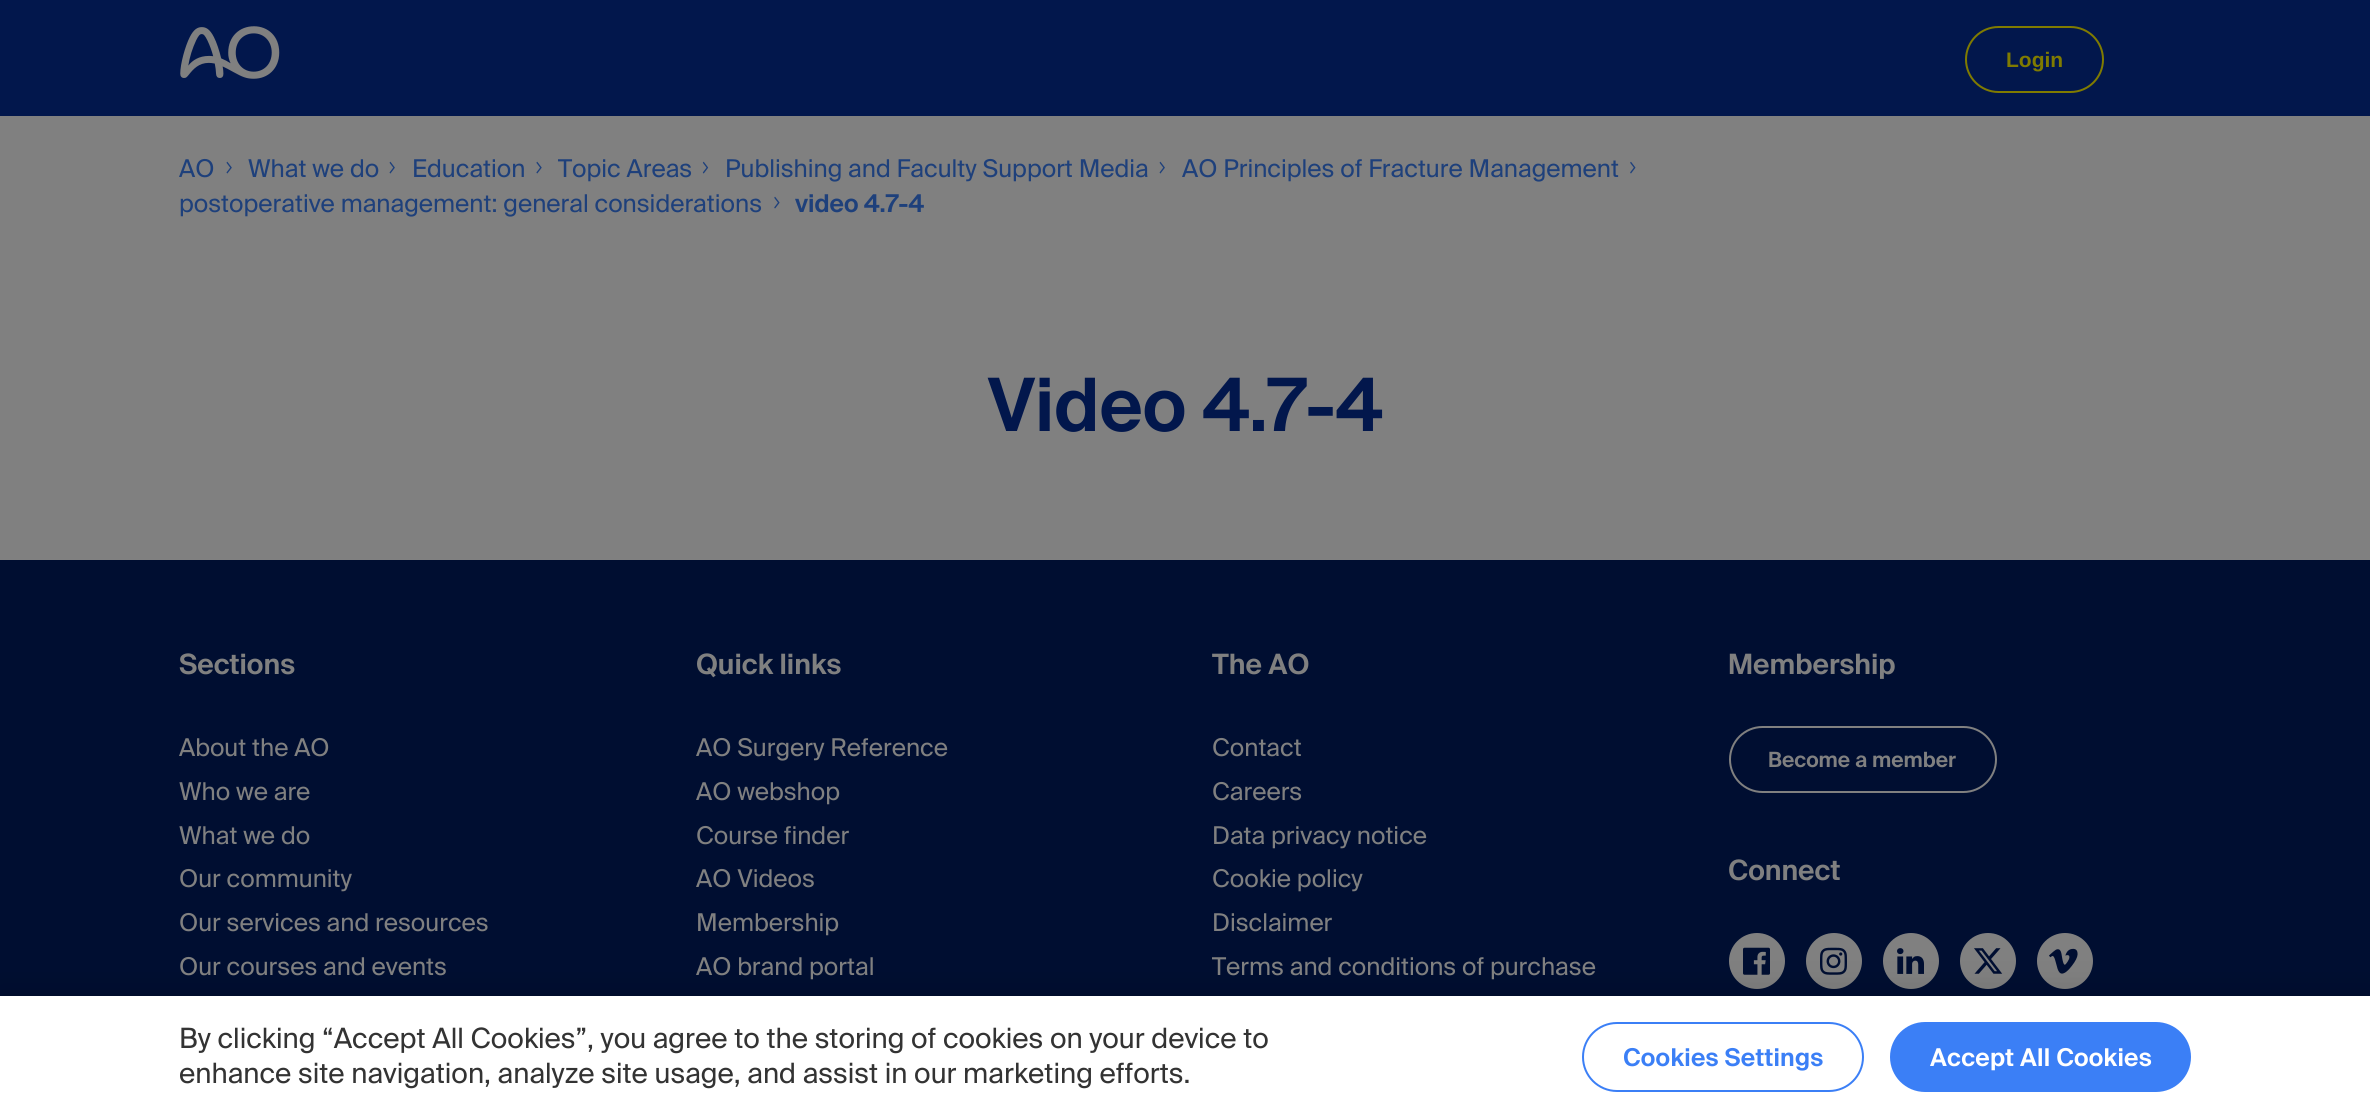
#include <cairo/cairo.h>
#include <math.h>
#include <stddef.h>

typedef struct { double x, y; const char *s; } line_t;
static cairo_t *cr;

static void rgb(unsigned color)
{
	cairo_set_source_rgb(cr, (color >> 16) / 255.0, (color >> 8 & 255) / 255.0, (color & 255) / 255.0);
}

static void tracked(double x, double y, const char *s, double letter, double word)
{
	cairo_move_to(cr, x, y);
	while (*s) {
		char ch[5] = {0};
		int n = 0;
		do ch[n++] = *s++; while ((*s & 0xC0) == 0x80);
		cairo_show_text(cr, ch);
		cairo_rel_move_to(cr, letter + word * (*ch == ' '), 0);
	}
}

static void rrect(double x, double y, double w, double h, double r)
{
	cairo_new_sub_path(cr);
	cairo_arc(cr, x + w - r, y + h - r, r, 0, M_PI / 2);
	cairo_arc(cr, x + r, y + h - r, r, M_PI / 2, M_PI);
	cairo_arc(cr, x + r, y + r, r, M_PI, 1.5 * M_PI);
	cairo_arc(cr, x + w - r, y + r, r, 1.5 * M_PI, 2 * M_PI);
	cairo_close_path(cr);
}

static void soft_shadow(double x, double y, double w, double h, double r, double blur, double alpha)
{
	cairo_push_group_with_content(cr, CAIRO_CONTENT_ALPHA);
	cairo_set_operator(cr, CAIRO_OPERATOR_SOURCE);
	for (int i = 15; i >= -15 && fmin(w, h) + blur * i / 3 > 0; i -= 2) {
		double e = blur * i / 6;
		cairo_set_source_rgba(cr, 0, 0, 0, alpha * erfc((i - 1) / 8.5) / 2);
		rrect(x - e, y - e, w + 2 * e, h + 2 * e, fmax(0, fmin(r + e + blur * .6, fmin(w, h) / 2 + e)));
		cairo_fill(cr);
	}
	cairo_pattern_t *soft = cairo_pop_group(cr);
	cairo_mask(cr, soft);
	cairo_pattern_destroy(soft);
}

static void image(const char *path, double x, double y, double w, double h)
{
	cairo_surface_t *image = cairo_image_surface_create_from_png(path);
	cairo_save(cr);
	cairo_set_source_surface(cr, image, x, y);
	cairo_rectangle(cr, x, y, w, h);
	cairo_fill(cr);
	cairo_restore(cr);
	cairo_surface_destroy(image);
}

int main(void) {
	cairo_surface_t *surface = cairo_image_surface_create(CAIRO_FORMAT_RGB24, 2370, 1118);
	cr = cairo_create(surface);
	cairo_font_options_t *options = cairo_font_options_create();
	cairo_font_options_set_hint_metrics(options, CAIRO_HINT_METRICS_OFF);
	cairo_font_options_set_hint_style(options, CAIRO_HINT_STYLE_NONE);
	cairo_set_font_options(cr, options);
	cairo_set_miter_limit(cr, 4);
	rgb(0x808080);
	cairo_paint(cr);
	rgb(0x02174c);
	cairo_rectangle(cr, 0, 0, 2370, 116);
	cairo_fill(cr);
	image("img/1.png", 180, 26, 100, 53);
	rrect(1966, 27, 137, 65, 32.5);
	rgb(0x807b00);
	cairo_stroke(cr);
	image("img/2.png", 226, 161, 6, 13);
	image("img/3.png", 389, 161, 6, 13);
	image("img/4.png", 536, 161, 6, 13);
	image("img/5.png", 702, 161, 7, 13);
	image("img/6.png", 1159, 161, 6, 13);
	image("img/7.png", 1630, 161, 6, 13);
	image("img/8.png", 774, 196, 6, 13);
	rgb(0x000e31);
	cairo_rectangle(cr, 0, 560, 2370, 436);
	cairo_fill(cr);
	rrect(1730, 727, 266, 65, 32.5);
	rgb(0x808080);
	cairo_stroke(cr);
	cairo_arc(cr, 1757, 961, 28, 0, 2 * M_PI);
	cairo_fill(cr);
	image("img/9.png", 1743, 947, 27, 28);
	cairo_arc(cr, 1834, 961, 28, 0, 2 * M_PI);
	cairo_fill(cr);
	image("img/10.png", 1820, 947, 27, 28);
	cairo_arc(cr, 1911, 961, 28, 0, 2 * M_PI);
	cairo_fill(cr);
	image("img/11.png", 1897, 948, 27, 26);
	cairo_arc(cr, 1988, 961, 28, 0, 2 * M_PI);
	cairo_fill(cr);
	image("img/12.png", 1974, 948, 29, 26);
	cairo_arc(cr, 2065, 961, 28, 0, 2 * M_PI);
	cairo_fill(cr);
	image("img/13.png", 2049, 948, 29, 26);
	rgb(0x000000);
	soft_shadow(0, 996, 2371, 122, 0, 16, 0.2);
	rgb(0xffffff);
	cairo_rectangle(cr, 0, 996, 2370, 122);
	cairo_fill(cr);
	rrect(1583, 1023, 280, 68, 34);
	rgb(0x3b7ff6);
	cairo_stroke(cr);
	rrect(1891, 1023, 299, 68, 34);
	cairo_fill_preserve(cr);
	cairo_stroke(cr);
	cairo_select_font_face(cr, "Liberation Sans", CAIRO_FONT_SLANT_NORMAL, CAIRO_FONT_WEIGHT_BOLD);
	cairo_set_font_size(cr, 21);
	rgb(0x807b00);
	cairo_move_to(cr, 2006, 67);
	cairo_show_text(cr, "Login");
	cairo_select_font_face(cr, "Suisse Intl", CAIRO_FONT_SLANT_NORMAL, CAIRO_FONT_WEIGHT_NORMAL);
	cairo_set_font_size(cr, 24.5);
	rgb(0x1e407b);
	{
		static const line_t items[] = {
			{179, 177, "AO"},
			{248, 177, "What we do"},
			{412, 177, "Education"},
			{558, 177, "Topic Areas"},
			{725, 177, "Publishing and Faculty Support Media"},
			{1182, 177, "AO Principles of Fracture Management"},
			{179, 212, "postoperative management: general considerations"},
		};
		for (size_t i = 0; i < sizeof items / sizeof *items; i++) {
			cairo_move_to(cr, items[i].x, items[i].y);
			cairo_show_text(cr, items[i].s);
		}
	}
	cairo_select_font_face(cr, "Suisse Intl SemiBold", CAIRO_FONT_SLANT_NORMAL, CAIRO_FONT_WEIGHT_NORMAL);
	cairo_move_to(cr, 795, 212);
	cairo_show_text(cr, "video 4.7-4");
	cairo_set_font_size(cr, 73.5);
	rgb(0x02174c);
	cairo_move_to(cr, 988, 431);
	cairo_show_text(cr, "Video 4.7-4");
	cairo_set_font_size(cr, 28);
	rgb(0x808080);
	cairo_move_to(cr, 179, 674);
	cairo_show_text(cr, "Sections");
	cairo_select_font_face(cr, "Suisse Intl", CAIRO_FONT_SLANT_NORMAL, CAIRO_FONT_WEIGHT_NORMAL);
	cairo_set_font_size(cr, 24.5);
	{
		static const line_t items[] = {
			{179, 756, "About the AO"},
			{179, 800, "Who we are"},
			{179, 844, "What we do"},
			{179, 887, "Our community"},
			{179, 931, "Our services and resources"},
			{179, 975, "Our courses and events"},
		};
		for (size_t i = 0; i < sizeof items / sizeof *items; i++) {
			cairo_move_to(cr, items[i].x, items[i].y);
			cairo_show_text(cr, items[i].s);
		}
	}
	cairo_select_font_face(cr, "Suisse Intl SemiBold", CAIRO_FONT_SLANT_NORMAL, CAIRO_FONT_WEIGHT_NORMAL);
	cairo_set_font_size(cr, 28);
	cairo_move_to(cr, 696, 674);
	cairo_show_text(cr, "Quick links");
	cairo_select_font_face(cr, "Suisse Intl", CAIRO_FONT_SLANT_NORMAL, CAIRO_FONT_WEIGHT_NORMAL);
	cairo_set_font_size(cr, 24.5);
	{
		static const line_t items[] = {
			{696, 756, "AO Surgery Reference"},
			{696, 800, "AO webshop"},
			{696, 844, "Course finder"},
			{696, 887, "AO Videos"},
			{696, 931, "Membership"},
			{696, 975, "AO brand portal"},
		};
		for (size_t i = 0; i < sizeof items / sizeof *items; i++) {
			cairo_move_to(cr, items[i].x, items[i].y);
			cairo_show_text(cr, items[i].s);
		}
	}
	cairo_select_font_face(cr, "Suisse Intl SemiBold", CAIRO_FONT_SLANT_NORMAL, CAIRO_FONT_WEIGHT_NORMAL);
	cairo_set_font_size(cr, 28);
	cairo_move_to(cr, 1212, 674);
	cairo_show_text(cr, "The AO");
	cairo_select_font_face(cr, "Suisse Intl", CAIRO_FONT_SLANT_NORMAL, CAIRO_FONT_WEIGHT_NORMAL);
	cairo_set_font_size(cr, 24.5);
	{
		static const line_t items[] = {
			{1212, 756, "Contact"},
			{1212, 800, "Careers"},
			{1212, 844, "Data privacy notice"},
			{1212, 887, "Cookie policy"},
			{1212, 931, "Disclaimer"},
			{1212, 975, "Terms and conditions of purchase"},
		};
		for (size_t i = 0; i < sizeof items / sizeof *items; i++) {
			cairo_move_to(cr, items[i].x, items[i].y);
			cairo_show_text(cr, items[i].s);
		}
	}
	cairo_select_font_face(cr, "Suisse Intl SemiBold", CAIRO_FONT_SLANT_NORMAL, CAIRO_FONT_WEIGHT_NORMAL);
	cairo_set_font_size(cr, 28);
	cairo_move_to(cr, 1728, 674);
	cairo_show_text(cr, "Membership");
	cairo_set_font_size(cr, 21);
	cairo_move_to(cr, 1768, 767);
	cairo_show_text(cr, "Become a member");
	cairo_set_font_size(cr, 28);
	cairo_move_to(cr, 1728, 880);
	cairo_show_text(cr, "Connect");
	cairo_select_font_face(cr, "Suisse Intl", CAIRO_FONT_SLANT_NORMAL, CAIRO_FONT_WEIGHT_NORMAL);
	rgb(0x333333);
	cairo_move_to(cr, 179, 1048);
	cairo_show_text(cr, "By clicking “Accept All Cookies”, you agree to the storing of cookies on your device to");
	cairo_move_to(cr, 179, 1083);
	cairo_show_text(cr, "enhance site navigation, analyze site usage, and assist in our marketing efforts.");
	cairo_select_font_face(cr, "Suisse Intl SemiBold", CAIRO_FONT_SLANT_NORMAL, CAIRO_FONT_WEIGHT_NORMAL);
	cairo_set_font_size(cr, 24.5);
	rgb(0x3b7ff6);
	tracked(1623, 1066, "Cookies Settings", 0.25, 0);
	rgb(0xffffff);
	tracked(1930, 1066, "Accept All Cookies", 0.25, 0);
	cairo_surface_write_to_png(surface, "page.png");
	cairo_font_options_destroy(options);
	cairo_destroy(cr);
	cairo_surface_destroy(surface);
	return 0;
}
